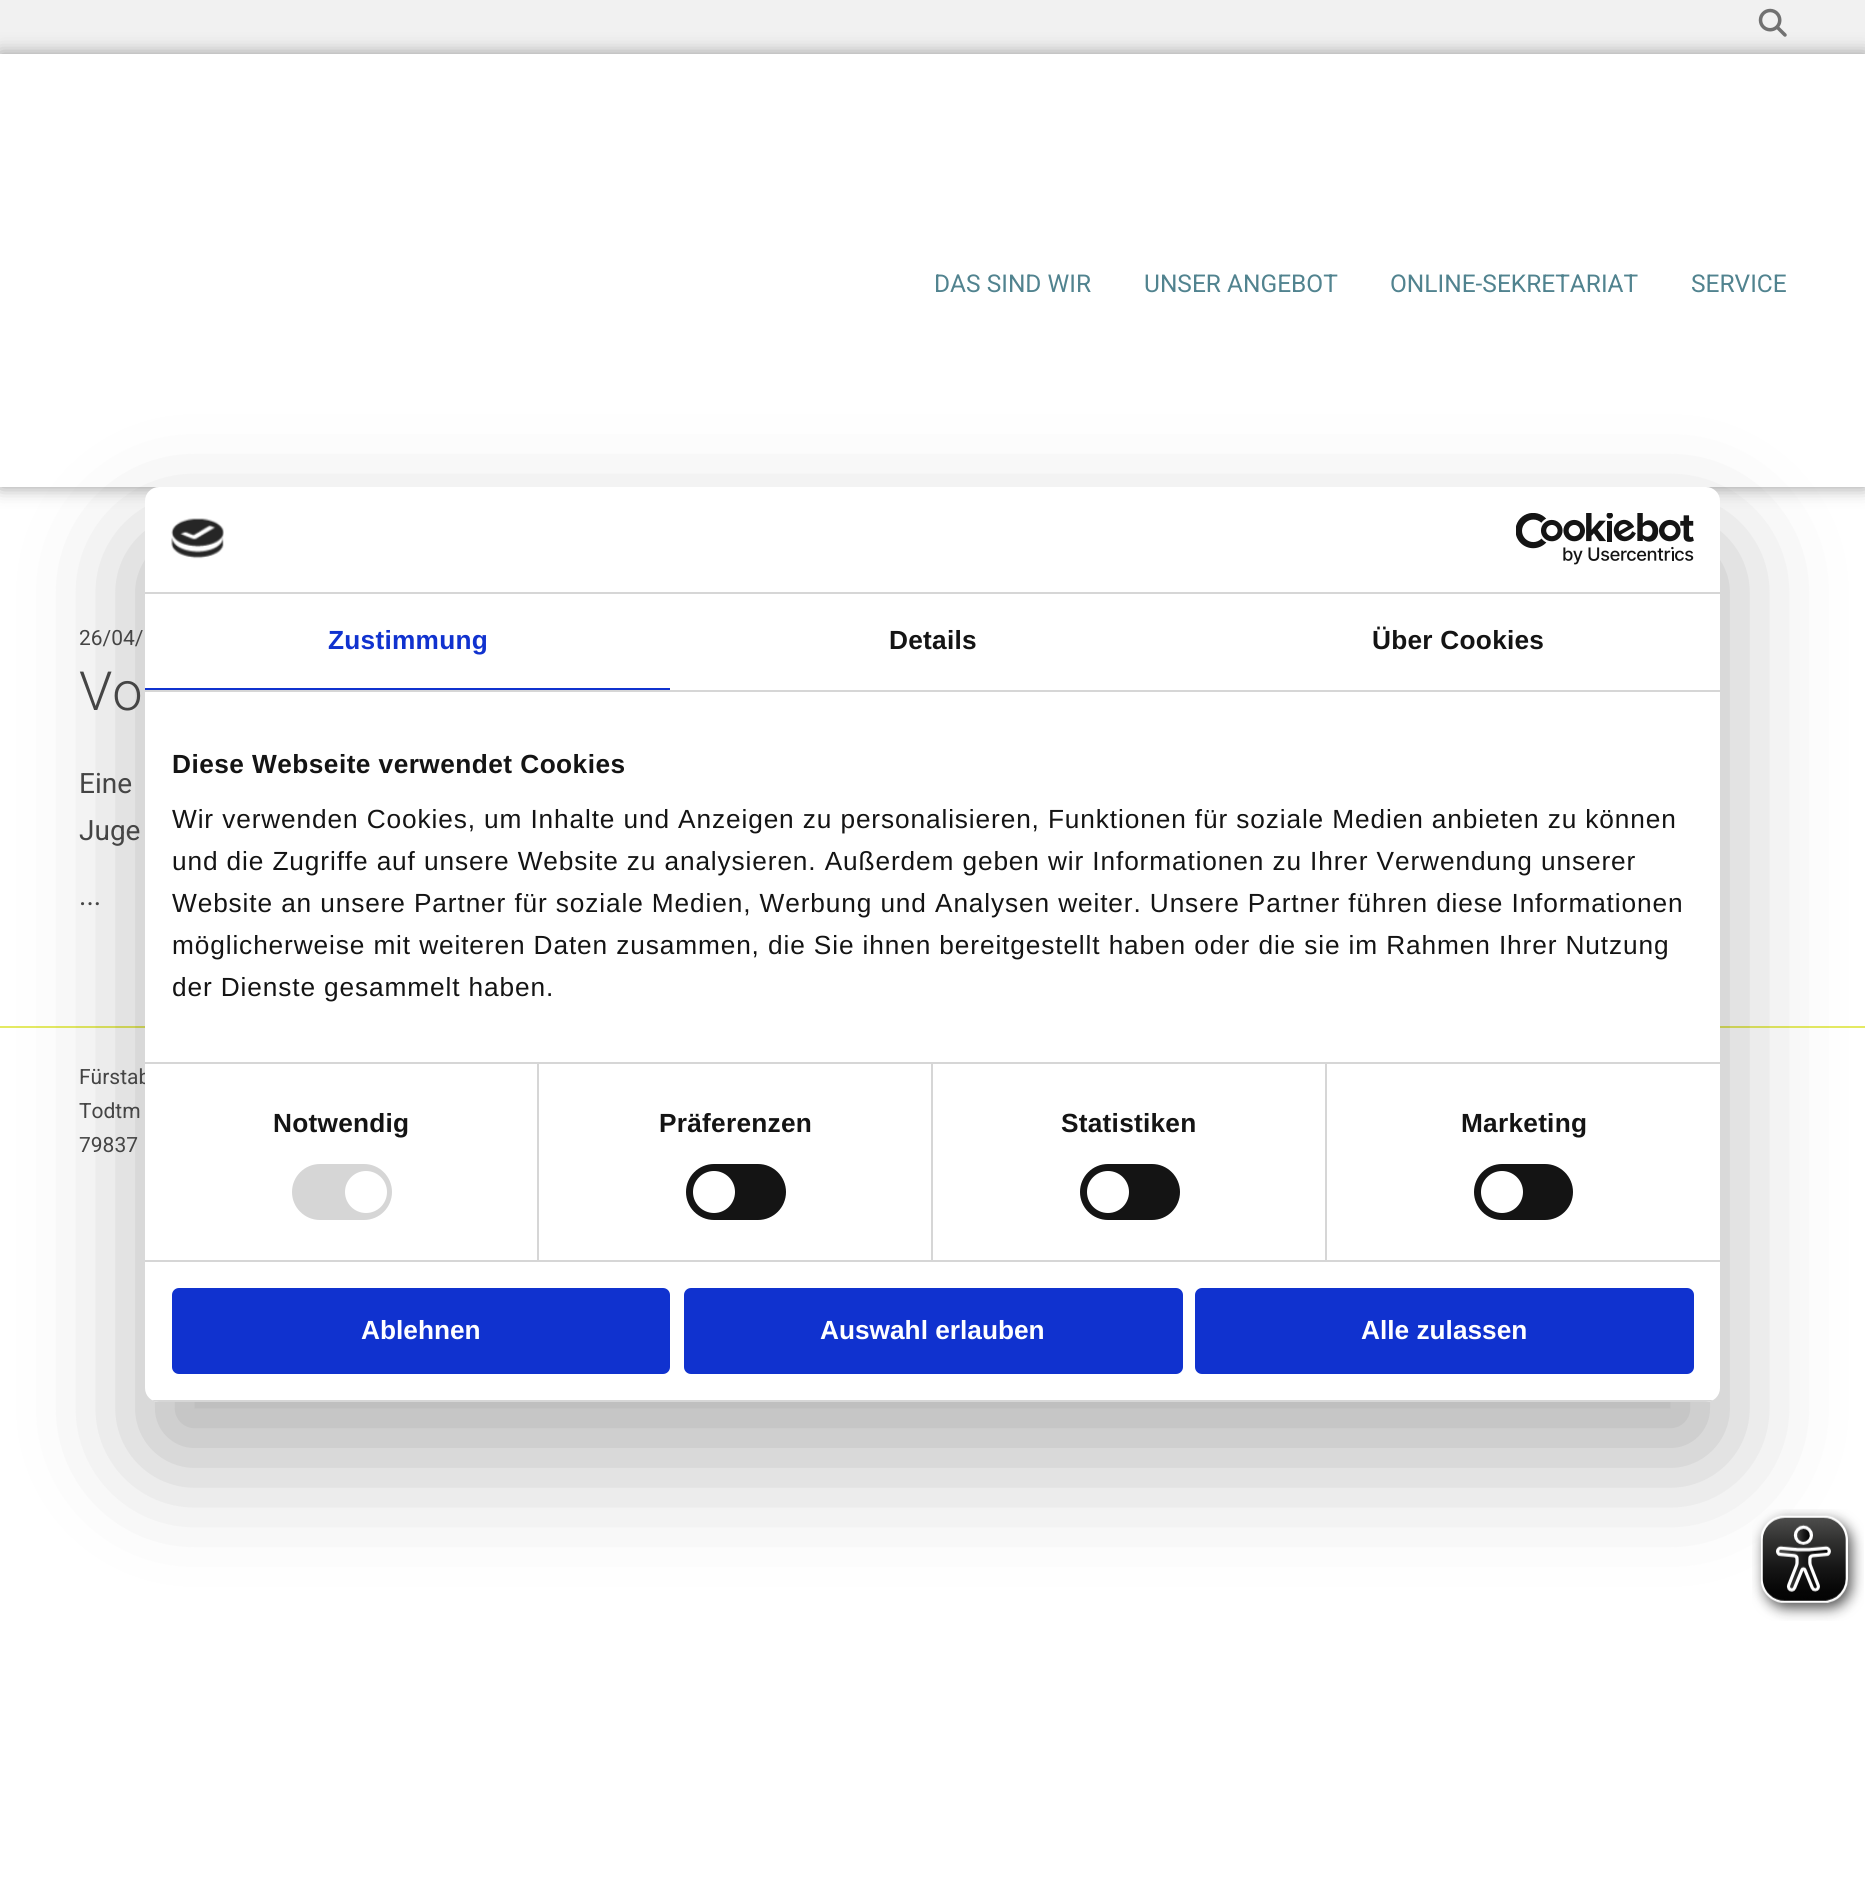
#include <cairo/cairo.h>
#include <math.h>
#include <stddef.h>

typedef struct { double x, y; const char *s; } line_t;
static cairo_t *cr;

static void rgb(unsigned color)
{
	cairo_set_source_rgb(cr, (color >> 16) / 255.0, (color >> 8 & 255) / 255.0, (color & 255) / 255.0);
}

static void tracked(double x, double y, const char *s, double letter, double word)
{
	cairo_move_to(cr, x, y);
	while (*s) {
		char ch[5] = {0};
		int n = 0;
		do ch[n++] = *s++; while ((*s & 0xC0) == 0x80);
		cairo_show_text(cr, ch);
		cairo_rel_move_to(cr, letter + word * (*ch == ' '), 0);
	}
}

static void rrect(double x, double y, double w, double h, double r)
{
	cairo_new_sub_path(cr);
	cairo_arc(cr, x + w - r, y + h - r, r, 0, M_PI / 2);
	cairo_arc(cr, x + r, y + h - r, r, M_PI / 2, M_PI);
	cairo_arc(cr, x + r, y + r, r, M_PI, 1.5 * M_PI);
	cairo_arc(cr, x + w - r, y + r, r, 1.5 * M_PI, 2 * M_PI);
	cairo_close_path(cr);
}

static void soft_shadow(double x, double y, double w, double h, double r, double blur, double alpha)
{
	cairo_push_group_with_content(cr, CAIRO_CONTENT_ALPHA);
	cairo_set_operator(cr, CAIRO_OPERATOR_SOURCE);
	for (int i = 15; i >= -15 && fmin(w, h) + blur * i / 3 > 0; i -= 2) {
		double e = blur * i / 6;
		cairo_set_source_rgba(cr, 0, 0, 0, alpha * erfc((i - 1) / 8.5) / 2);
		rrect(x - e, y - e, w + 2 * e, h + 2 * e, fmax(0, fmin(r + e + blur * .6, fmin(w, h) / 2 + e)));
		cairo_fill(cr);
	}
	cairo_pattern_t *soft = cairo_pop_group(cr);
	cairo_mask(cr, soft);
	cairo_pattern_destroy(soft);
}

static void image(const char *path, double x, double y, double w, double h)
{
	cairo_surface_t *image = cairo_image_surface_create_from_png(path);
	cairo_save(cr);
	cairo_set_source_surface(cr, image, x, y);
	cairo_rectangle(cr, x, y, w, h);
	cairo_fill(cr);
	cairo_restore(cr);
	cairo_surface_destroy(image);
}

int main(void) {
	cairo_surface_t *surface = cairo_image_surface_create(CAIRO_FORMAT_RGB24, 1865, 1886);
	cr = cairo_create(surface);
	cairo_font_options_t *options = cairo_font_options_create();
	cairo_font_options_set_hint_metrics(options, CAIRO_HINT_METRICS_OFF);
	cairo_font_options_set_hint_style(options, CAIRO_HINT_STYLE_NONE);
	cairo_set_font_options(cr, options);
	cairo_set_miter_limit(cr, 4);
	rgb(0xffffff);
	cairo_paint(cr);
	rgb(0xf1f1f1);
	cairo_rectangle(cr, 0, 0, 1865, 54);
	cairo_fill(cr);
	image("img/1.png", 1758, 8, 29, 29);
	rgb(0x999999);
	soft_shadow(0, 54, 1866, 433, 0, 9, 1);
	rgb(0xffffff);
	cairo_rectangle(cr, 0, 54, 1865, 433);
	cairo_fill(cr);
	rgb(0xe4ea62);
	cairo_rectangle(cr, 0, 1026, 1865, 2);
	cairo_fill(cr);
	rgb(0x000000);
	soft_shadow(145, 543, 1575, 915, 14, 59.5, 0.3);
	image("img/4.png", 1752, 1509, 112, 112);
	cairo_select_font_face(cr, "Roboto", CAIRO_FONT_SLANT_NORMAL, CAIRO_FONT_WEIGHT_NORMAL);
	cairo_set_font_size(cr, 24.5);
	rgb(0x51838f);
	{
		static const line_t items[] = {
			{934, 292, "DAS SIND WIR"},
			{1144, 292, "UNSER ANGEBOT"},
			{1390, 292, "ONLINE-SEKRETARIAT"},
			{1691, 292, "SERVICE"},
		};
		for (size_t i = 0; i < sizeof items / sizeof *items; i++) {
			cairo_move_to(cr, items[i].x, items[i].y);
			cairo_show_text(cr, items[i].s);
		}
	}
	cairo_set_font_size(cr, 21);
	rgb(0x454545);
	cairo_move_to(cr, 79, 645);
	cairo_show_text(cr, "26/04/");
	cairo_select_font_face(cr, "Roboto Light", CAIRO_FONT_SLANT_NORMAL, CAIRO_FONT_WEIGHT_NORMAL);
	cairo_set_font_size(cr, 54);
	cairo_move_to(cr, 79, 710);
	cairo_show_text(cr, "Vo");
	cairo_select_font_face(cr, "Roboto", CAIRO_FONT_SLANT_NORMAL, CAIRO_FONT_WEIGHT_NORMAL);
	cairo_set_font_size(cr, 28);
	{
		static const line_t items[] = {
			{79, 793, "Eine"},
			{79, 840, "Juge"},
			{79, 905, "..."},
		};
		for (size_t i = 0; i < sizeof items / sizeof *items; i++) {
			cairo_move_to(cr, items[i].x, items[i].y);
			cairo_show_text(cr, items[i].s);
		}
	}
	cairo_set_font_size(cr, 21);
	{
		static const line_t items[] = {
			{79, 1084, "Fürstab"},
			{79, 1118, "Todtm"},
			{79, 1152, "79837"},
		};
		for (size_t i = 0; i < sizeof items / sizeof *items; i++) {
			cairo_move_to(cr, items[i].x, items[i].y);
			cairo_show_text(cr, items[i].s);
		}
	}
	rgb(0xffffff);
	rrect(145, 487, 1575, 915, 14);
	cairo_fill(cr);
	rgb(0xd6d6d6);
	cairo_rectangle(cr, 145, 592, 1575, 2);
	cairo_fill(cr);
	image("img/2.png", 171, 518, 53, 41);
	image("img/3.png", 1516, 513, 178, 52);
	cairo_rectangle(cr, 145, 690, 1575, 2);
	cairo_fill(cr);
	rgb(0x1032cf);
	cairo_rectangle(cr, 145, 688, 525, 2);
	cairo_fill(cr);
	cairo_select_font_face(cr, "Liberation Sans", CAIRO_FONT_SLANT_NORMAL, CAIRO_FONT_WEIGHT_BOLD);
	cairo_set_font_size(cr, 26.25);
	tracked(328, 649, "Zustimmung", 0.25, 0);
	rgb(0x141414);
	tracked(889, 649, "Details", 0.25, 0);
	tracked(1372, 649, "Über Cookies", 0.25, 0);
	rgb(0xd6d6d6);
	cairo_rectangle(cr, 145, 1062, 1575, 2);
	cairo_fill(cr);
	rgb(0x141414);
	tracked(172, 773, "Diese Webseite verwendet Cookies", 0.45, 0);
	cairo_select_font_face(cr, "Liberation Sans", CAIRO_FONT_SLANT_NORMAL, CAIRO_FONT_WEIGHT_NORMAL);
	{
		static const line_t items[] = {
			{172, 828, "Wir verwenden Cookies, um Inhalte und Anzeigen zu personalisieren, Funktionen für soziale Medien anbieten zu können"},
			{172, 870, "und die Zugriffe auf unsere Website zu analysieren. Außerdem geben wir Informationen zu Ihrer Verwendung unserer"},
			{172, 912, "Website an unsere Partner für soziale Medien, Werbung und Analysen weiter. Unsere Partner führen diese Informationen"},
			{172, 954, "möglicherweise mit weiteren Daten zusammen, die Sie ihnen bereitgestellt haben oder die sie im Rahmen Ihrer Nutzung"},
			{172, 996, "der Dienste gesammelt haben."},
		};
		for (size_t i = 0; i < sizeof items / sizeof *items; i++) {
			tracked(items[i].x, items[i].y, items[i].s, 0.88, 0);
		}
	}
	rgb(0xd6d6d6);
	cairo_rectangle(cr, 145, 1260, 1575, 2);
	cairo_fill(cr);
	cairo_rectangle(cr, 537, 1064, 2, 196);
	cairo_fill(cr);
	cairo_select_font_face(cr, "Liberation Sans", CAIRO_FONT_SLANT_NORMAL, CAIRO_FONT_WEIGHT_BOLD);
	rgb(0x141414);
	tracked(273, 1132, "Notwendig", 0.25, 0);
	rgb(0xd6d6d6);
	rrect(292, 1164, 100, 56, 28);
	cairo_fill(cr);
	rgb(0xffffff);
	cairo_arc(cr, 366, 1192, 21, 0, 2 * M_PI);
	cairo_fill(cr);
	rgb(0xd6d6d6);
	cairo_rectangle(cr, 931, 1064, 2, 196);
	cairo_fill(cr);
	rgb(0x141414);
	tracked(659, 1132, "Präferenzen", 0.25, 0);
	rrect(686, 1164, 100, 56, 28);
	cairo_fill(cr);
	rgb(0xffffff);
	cairo_arc(cr, 714, 1192, 21, 0, 2 * M_PI);
	cairo_fill(cr);
	rgb(0xd6d6d6);
	cairo_rectangle(cr, 1325, 1064, 2, 196);
	cairo_fill(cr);
	rgb(0x141414);
	tracked(1061, 1132, "Statistiken", 0.25, 0);
	rrect(1080, 1164, 100, 56, 28);
	cairo_fill(cr);
	rgb(0xffffff);
	cairo_arc(cr, 1108, 1192, 21, 0, 2 * M_PI);
	cairo_fill(cr);
	rgb(0x141414);
	tracked(1461, 1132, "Marketing", 0.25, 0);
	rrect(1474, 1164, 99, 56, 28);
	cairo_fill(cr);
	rgb(0xffffff);
	cairo_arc(cr, 1502, 1192, 21, 0, 2 * M_PI);
	cairo_fill(cr);
	cairo_save(cr);
	rrect(145, 487, 1575, 915, 14);
	cairo_clip(cr);
	rgb(0xd6d6d6);
	cairo_rectangle(cr, 145, 1400, 1575, 2);
	cairo_fill(cr);
	cairo_restore(cr);
	rgb(0x1032cf);
	rrect(174, 1290, 494, 82, 5);
	cairo_fill_preserve(cr);
	cairo_set_line_width(cr, 4);
	cairo_stroke(cr);
	rgb(0xffffff);
	cairo_move_to(cr, 361, 1339);
	cairo_show_text(cr, "Ablehnen");
	rgb(0x1032cf);
	rrect(686, 1290, 495, 82, 5);
	cairo_fill_preserve(cr);
	cairo_stroke(cr);
	rgb(0xffffff);
	cairo_move_to(cr, 820, 1339);
	cairo_show_text(cr, "Auswahl erlauben");
	rgb(0x1032cf);
	rrect(1197, 1290, 495, 82, 5);
	cairo_fill_preserve(cr);
	cairo_stroke(cr);
	rgb(0xffffff);
	cairo_move_to(cr, 1361, 1339);
	cairo_show_text(cr, "Alle zulassen");
	cairo_surface_write_to_png(surface, "page.png");
	cairo_font_options_destroy(options);
	cairo_destroy(cr);
	cairo_surface_destroy(surface);
	return 0;
}
